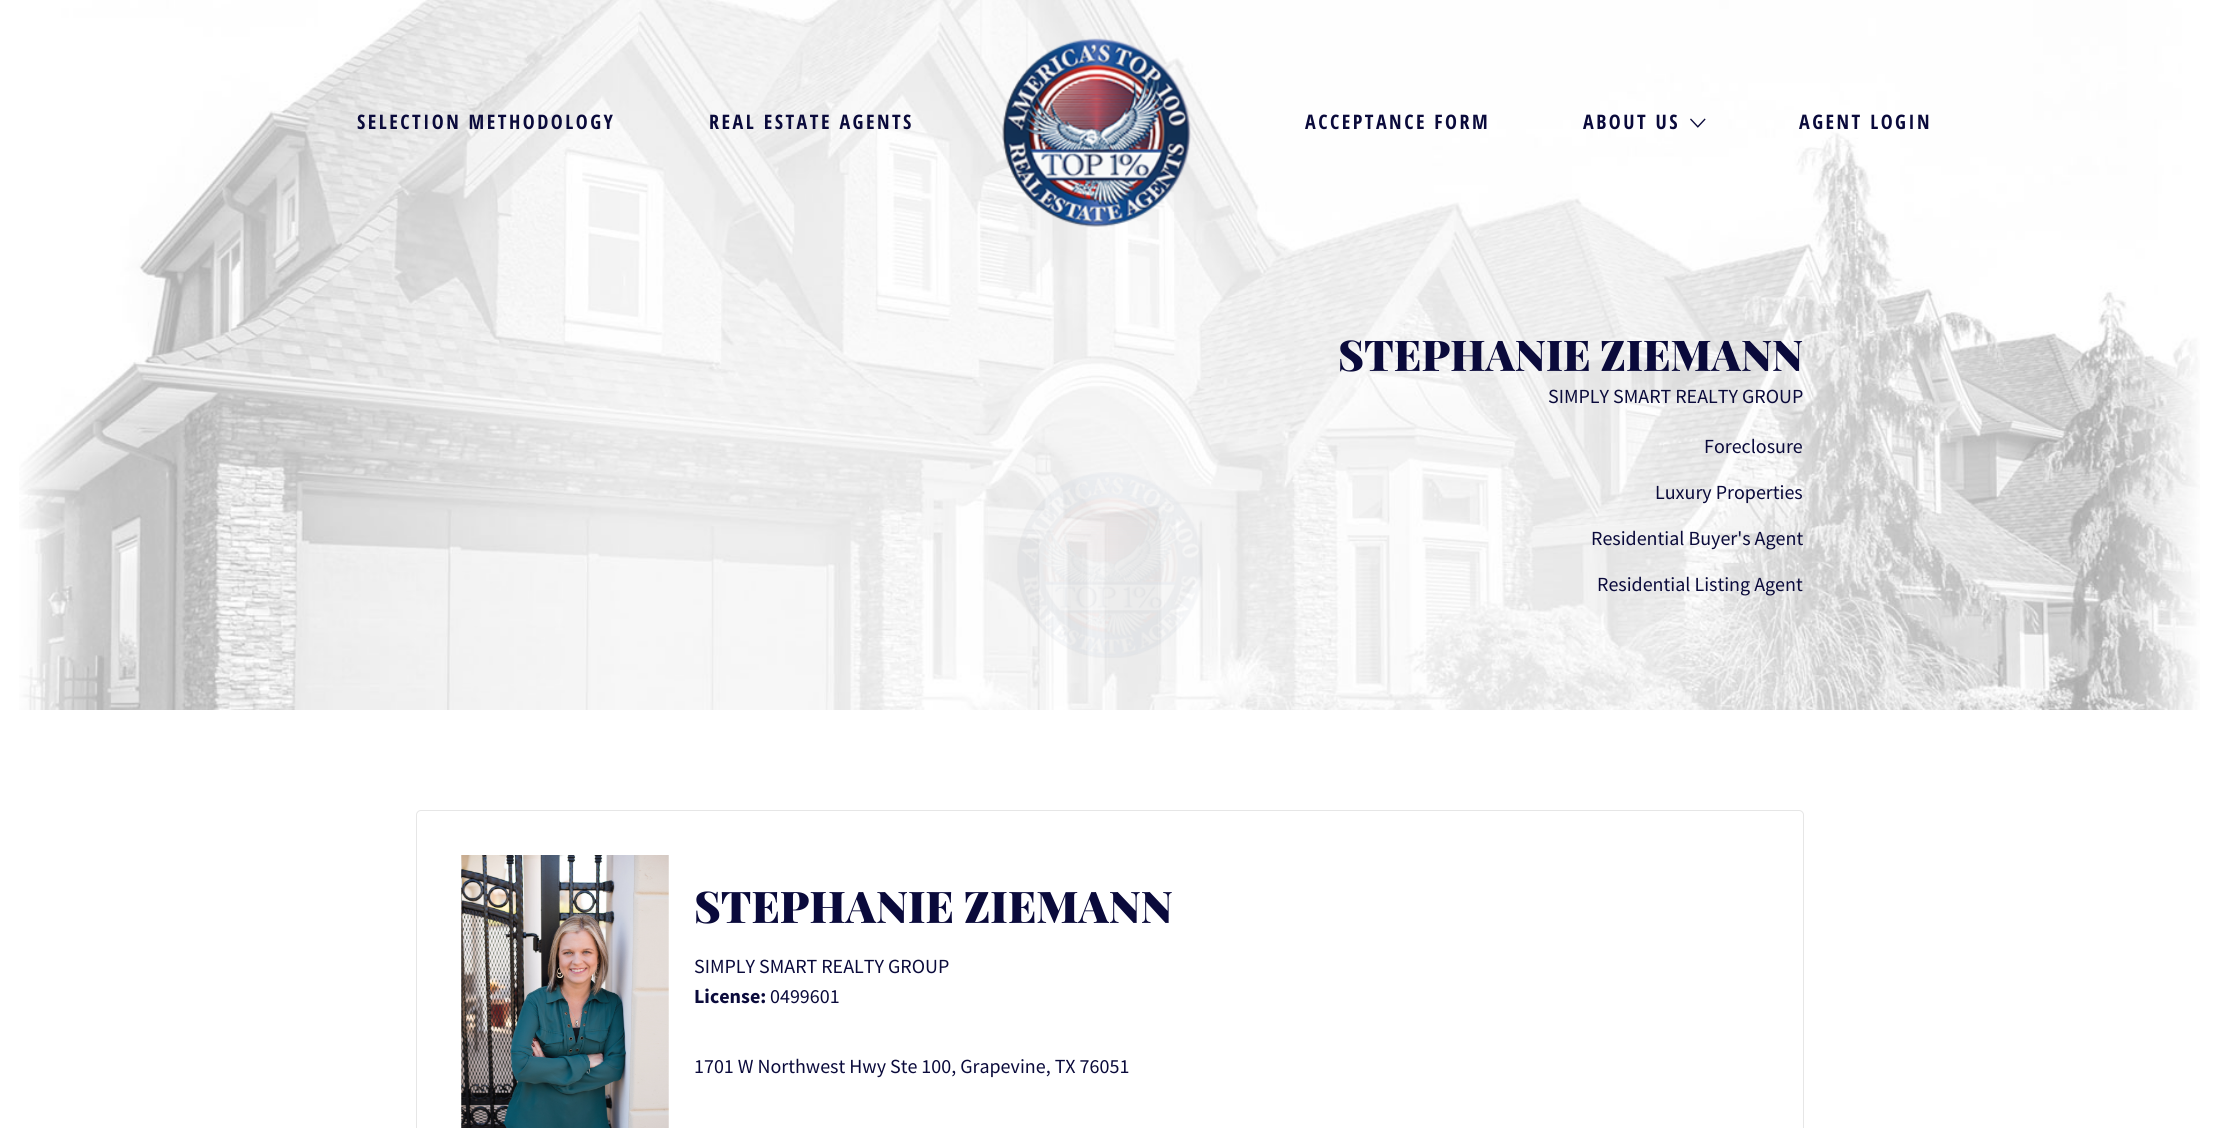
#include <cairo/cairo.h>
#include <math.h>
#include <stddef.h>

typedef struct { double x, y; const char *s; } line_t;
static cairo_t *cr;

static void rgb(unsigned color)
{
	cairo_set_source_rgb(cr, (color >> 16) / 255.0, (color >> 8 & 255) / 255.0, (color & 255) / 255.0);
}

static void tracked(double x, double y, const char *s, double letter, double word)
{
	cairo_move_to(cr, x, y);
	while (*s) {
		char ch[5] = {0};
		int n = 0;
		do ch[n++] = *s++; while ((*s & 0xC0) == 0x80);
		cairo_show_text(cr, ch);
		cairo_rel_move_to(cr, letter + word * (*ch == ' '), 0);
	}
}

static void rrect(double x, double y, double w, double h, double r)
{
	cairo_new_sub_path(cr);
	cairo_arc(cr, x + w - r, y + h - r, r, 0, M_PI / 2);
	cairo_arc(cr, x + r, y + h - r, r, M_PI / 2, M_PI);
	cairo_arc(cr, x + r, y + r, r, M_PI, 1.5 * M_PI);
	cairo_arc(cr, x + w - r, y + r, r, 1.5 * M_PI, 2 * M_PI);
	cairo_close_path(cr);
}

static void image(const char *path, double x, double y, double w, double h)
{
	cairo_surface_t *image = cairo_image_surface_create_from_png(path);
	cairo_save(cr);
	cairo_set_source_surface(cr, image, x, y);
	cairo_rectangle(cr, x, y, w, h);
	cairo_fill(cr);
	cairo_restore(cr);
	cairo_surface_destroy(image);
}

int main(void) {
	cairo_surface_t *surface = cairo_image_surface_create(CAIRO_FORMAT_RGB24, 2218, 1128);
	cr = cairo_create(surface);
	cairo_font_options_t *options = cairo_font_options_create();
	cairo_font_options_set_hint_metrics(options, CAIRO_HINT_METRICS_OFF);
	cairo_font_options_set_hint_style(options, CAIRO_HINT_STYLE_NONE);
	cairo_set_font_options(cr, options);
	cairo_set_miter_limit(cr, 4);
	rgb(0xffffff);
	cairo_paint(cr);
	image("img/3.png", 19, 0, 2181, 710);
	image("img/1.png", 1002, 38, 189, 189);
	image("img/2.png", 1690, 118, 16, 10);
	rrect(416.5, 810.5, 1387, 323, 4.5);
	rgb(0xe6e6e6);
	cairo_set_line_width(cr, 1);
	cairo_stroke(cr);
	image("img/4.png", 461, 855, 208, 273);
	image("img/5.png", 1017, 472, 186, 186);
	cairo_select_font_face(cr, "Open Sans Condensed", CAIRO_FONT_SLANT_NORMAL, CAIRO_FONT_WEIGHT_BOLD);
	cairo_set_font_size(cr, 20);
	rgb(0x0a0a3b);
	{
		static const line_t items[] = {
			{357, 129, "SELECTION METHODOLOGY"},
			{709, 129, "REAL ESTATE AGENTS"},
			{1305, 129, "ACCEPTANCE FORM"},
			{1583, 129, "ABOUT US"},
			{1799, 129, "AGENT LOGIN"},
		};
		for (size_t i = 0; i < sizeof items / sizeof *items; i++) {
			tracked(items[i].x, items[i].y, items[i].s, 2.5, 0);
		}
	}
	cairo_select_font_face(cr, "Playfair Display Black", CAIRO_FONT_SLANT_NORMAL, CAIRO_FONT_WEIGHT_NORMAL);
	cairo_set_font_size(cr, 42.5);
	cairo_move_to(cr, 1338, 371);
	cairo_show_text(cr, "STEPHANIE ZIEMANN");
	cairo_select_font_face(cr, "Source Sans Pro", CAIRO_FONT_SLANT_NORMAL, CAIRO_FONT_WEIGHT_NORMAL);
	cairo_set_font_size(cr, 20);
	{
		static const line_t items[] = {
			{1548, 403, "SIMPLY SMART REALTY GROUP"},
			{1704, 453, "Foreclosure"},
			{1655, 499, "Luxury Properties"},
			{1591, 545, "Residential Buyer's Agent"},
			{1597, 591, "Residential Listing Agent"},
		};
		for (size_t i = 0; i < sizeof items / sizeof *items; i++) {
			cairo_move_to(cr, items[i].x, items[i].y);
			cairo_show_text(cr, items[i].s);
		}
	}
	cairo_select_font_face(cr, "Playfair Display Black", CAIRO_FONT_SLANT_NORMAL, CAIRO_FONT_WEIGHT_NORMAL);
	cairo_set_font_size(cr, 43.75);
	cairo_move_to(cr, 694, 923);
	cairo_show_text(cr, "STEPHANIE ZIEMANN");
	cairo_select_font_face(cr, "Source Sans Pro", CAIRO_FONT_SLANT_NORMAL, CAIRO_FONT_WEIGHT_NORMAL);
	cairo_set_font_size(cr, 20);
	cairo_move_to(cr, 694, 973);
	cairo_show_text(cr, "SIMPLY SMART REALTY GROUP");
	cairo_select_font_face(cr, "Source Sans Pro", CAIRO_FONT_SLANT_NORMAL, CAIRO_FONT_WEIGHT_BOLD);
	cairo_move_to(cr, 694, 1003);
	cairo_show_text(cr, "License:");
	cairo_select_font_face(cr, "Source Sans Pro", CAIRO_FONT_SLANT_NORMAL, CAIRO_FONT_WEIGHT_NORMAL);
	cairo_move_to(cr, 770, 1003);
	cairo_show_text(cr, "0499601");
	cairo_move_to(cr, 694, 1073);
	cairo_show_text(cr, "1701 W Northwest Hwy Ste 100, Grapevine, TX 76051");
	cairo_surface_write_to_png(surface, "page.png");
	cairo_font_options_destroy(options);
	cairo_destroy(cr);
	cairo_surface_destroy(surface);
	return 0;
}
